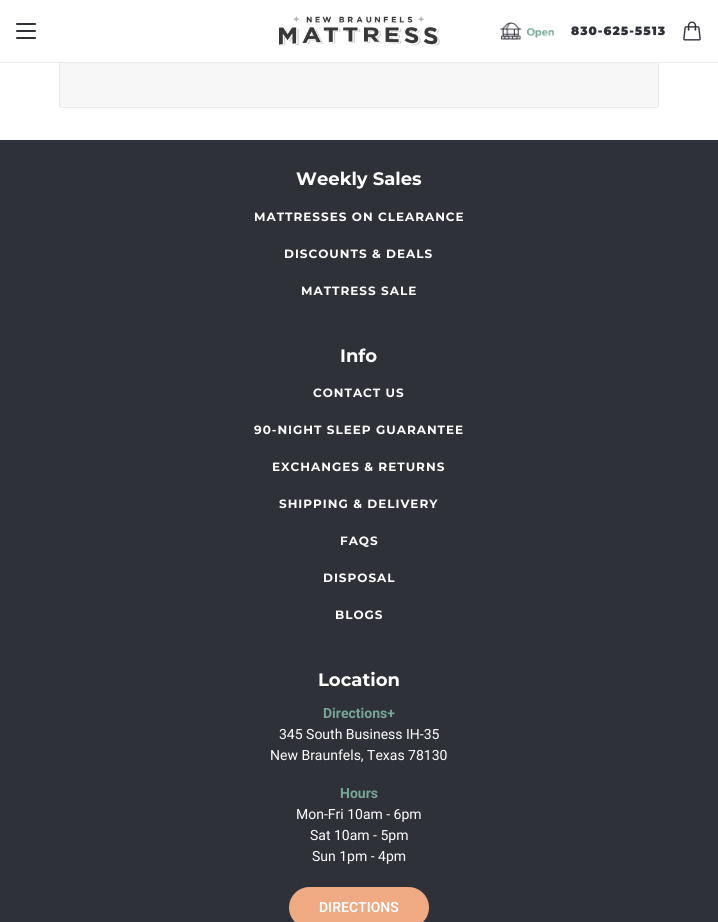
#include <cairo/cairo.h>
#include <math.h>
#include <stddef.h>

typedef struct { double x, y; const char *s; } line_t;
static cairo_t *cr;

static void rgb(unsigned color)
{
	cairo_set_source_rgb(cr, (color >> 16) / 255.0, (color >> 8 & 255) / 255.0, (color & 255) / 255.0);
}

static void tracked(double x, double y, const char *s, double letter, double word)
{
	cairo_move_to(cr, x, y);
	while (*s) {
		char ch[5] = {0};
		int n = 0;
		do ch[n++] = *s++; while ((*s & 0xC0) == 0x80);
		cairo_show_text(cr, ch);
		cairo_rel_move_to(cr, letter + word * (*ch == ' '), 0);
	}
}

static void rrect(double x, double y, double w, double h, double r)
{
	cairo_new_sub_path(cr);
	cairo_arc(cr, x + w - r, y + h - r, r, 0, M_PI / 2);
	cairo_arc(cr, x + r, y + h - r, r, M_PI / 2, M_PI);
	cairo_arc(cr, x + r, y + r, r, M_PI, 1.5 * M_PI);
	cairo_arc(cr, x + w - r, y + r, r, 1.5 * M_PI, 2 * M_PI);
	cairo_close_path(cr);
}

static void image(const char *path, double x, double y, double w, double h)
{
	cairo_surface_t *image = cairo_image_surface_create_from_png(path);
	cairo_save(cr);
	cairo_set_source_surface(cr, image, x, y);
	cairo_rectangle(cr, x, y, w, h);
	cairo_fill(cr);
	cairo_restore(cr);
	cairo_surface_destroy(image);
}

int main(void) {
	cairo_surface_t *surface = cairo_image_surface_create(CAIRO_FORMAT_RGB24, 718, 922);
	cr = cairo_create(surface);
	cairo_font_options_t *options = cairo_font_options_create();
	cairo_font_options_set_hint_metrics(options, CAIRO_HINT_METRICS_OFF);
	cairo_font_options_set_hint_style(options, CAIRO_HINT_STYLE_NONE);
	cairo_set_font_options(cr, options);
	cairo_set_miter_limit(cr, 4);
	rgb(0xffffff);
	cairo_paint(cr);
	rgb(0xf7f7f7);
	rrect(59.5, -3.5, 599, 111, 2.5);
	cairo_fill_preserve(cr);
	rgb(0xeaeaea);
	cairo_set_line_width(cr, 1);
	cairo_stroke(cr);
	rgb(0xffffff);
	cairo_rectangle(cr, 59, 0, 600, 62);
	cairo_fill(cr);
	rgb(0xeaeaeb);
	cairo_rectangle(cr, 0, 62, 718, 1);
	cairo_fill(cr);
	rgb(0x2f3139);
	rrect(16, 23, 20, 2, 1);
	cairo_fill(cr);
	rrect(16, 30, 20, 2, 1);
	cairo_fill(cr);
	rrect(16, 37, 20, 2, 1);
	cairo_fill(cr);
	image("img/1.png", 279, 16, 161, 30);
	image("img/2.png", 500, 22, 55, 18);
	image("img/3.png", 683, 21, 18, 20);
	cairo_rectangle(cr, 0, 140, 718, 782);
	cairo_fill(cr);
	rgb(0xefaa84);
	rrect(289, 887, 140, 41, 20.5);
	cairo_fill(cr);
	cairo_select_font_face(cr, "Montserrat Black", CAIRO_FONT_SLANT_NORMAL, CAIRO_FONT_WEIGHT_NORMAL);
	cairo_set_font_size(cr, 12);
	rgb(0x2f3139);
	tracked(571, 35, "830-625-5513", 1, 0);
	cairo_select_font_face(cr, "Montserrat", CAIRO_FONT_SLANT_NORMAL, CAIRO_FONT_WEIGHT_BOLD);
	cairo_set_font_size(cr, 18);
	rgb(0xffffff);
	cairo_move_to(cr, 296, 185);
	cairo_show_text(cr, "Weekly Sales");
	cairo_set_font_size(cr, 12);
	{
		static const line_t items[] = {
			{254, 221, "MATTRESSES ON CLEARANCE"},
			{284, 258, "DISCOUNTS & DEALS"},
			{301, 295, "MATTRESS SALE"},
		};
		for (size_t i = 0; i < sizeof items / sizeof *items; i++) {
			tracked(items[i].x, items[i].y, items[i].s, 1, 0);
		}
	}
	cairo_set_font_size(cr, 18);
	cairo_move_to(cr, 340, 362);
	cairo_show_text(cr, "Info");
	cairo_set_font_size(cr, 12);
	{
		static const line_t items[] = {
			{313, 397, "CONTACT US"},
			{254, 434, "90-NIGHT SLEEP GUARANTEE"},
			{272, 471, "EXCHANGES & RETURNS"},
			{279, 508, "SHIPPING & DELIVERY"},
			{340, 545, "FAQS"},
			{323, 582, "DISPOSAL"},
			{335, 619, "BLOGS"},
		};
		for (size_t i = 0; i < sizeof items / sizeof *items; i++) {
			tracked(items[i].x, items[i].y, items[i].s, 1, 0);
		}
	}
	cairo_set_font_size(cr, 18);
	cairo_move_to(cr, 318, 686);
	cairo_show_text(cr, "Location");
	cairo_select_font_face(cr, "Roboto", CAIRO_FONT_SLANT_NORMAL, CAIRO_FONT_WEIGHT_BOLD);
	cairo_set_font_size(cr, 14);
	rgb(0x77a694);
	cairo_move_to(cr, 323, 718);
	cairo_show_text(cr, "Directions+");
	cairo_select_font_face(cr, "Roboto", CAIRO_FONT_SLANT_NORMAL, CAIRO_FONT_WEIGHT_NORMAL);
	rgb(0xffffff);
	cairo_move_to(cr, 279, 739);
	cairo_show_text(cr, "345 South Business IH-35");
	cairo_move_to(cr, 270, 760);
	cairo_show_text(cr, "New Braunfels, Texas 78130");
	cairo_select_font_face(cr, "Roboto", CAIRO_FONT_SLANT_NORMAL, CAIRO_FONT_WEIGHT_BOLD);
	rgb(0x77a694);
	cairo_move_to(cr, 340, 798);
	cairo_show_text(cr, "Hours");
	cairo_select_font_face(cr, "Roboto", CAIRO_FONT_SLANT_NORMAL, CAIRO_FONT_WEIGHT_NORMAL);
	rgb(0xffffff);
	{
		static const line_t items[] = {
			{296, 819, "Mon-Fri 10am - 6pm"},
			{310, 840, "Sat 10am - 5pm"},
			{312, 861, "Sun 1pm - 4pm"},
		};
		for (size_t i = 0; i < sizeof items / sizeof *items; i++) {
			cairo_move_to(cr, items[i].x, items[i].y);
			cairo_show_text(cr, items[i].s);
		}
	}
	cairo_select_font_face(cr, "Roboto SemiBold", CAIRO_FONT_SLANT_NORMAL, CAIRO_FONT_WEIGHT_NORMAL);
	cairo_move_to(cr, 319, 912);
	cairo_show_text(cr, "DIRECTIONS");
	cairo_surface_write_to_png(surface, "page.png");
	cairo_font_options_destroy(options);
	cairo_destroy(cr);
	cairo_surface_destroy(surface);
	return 0;
}
